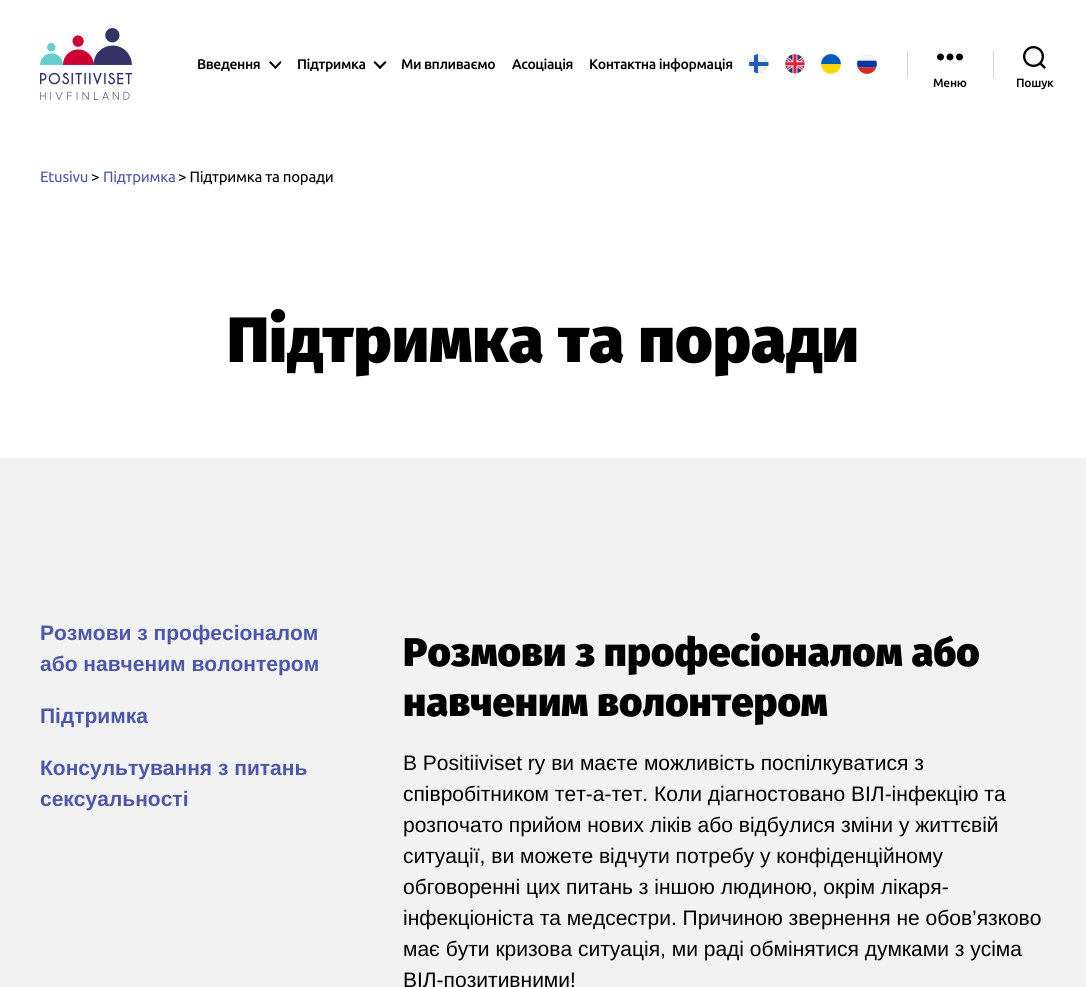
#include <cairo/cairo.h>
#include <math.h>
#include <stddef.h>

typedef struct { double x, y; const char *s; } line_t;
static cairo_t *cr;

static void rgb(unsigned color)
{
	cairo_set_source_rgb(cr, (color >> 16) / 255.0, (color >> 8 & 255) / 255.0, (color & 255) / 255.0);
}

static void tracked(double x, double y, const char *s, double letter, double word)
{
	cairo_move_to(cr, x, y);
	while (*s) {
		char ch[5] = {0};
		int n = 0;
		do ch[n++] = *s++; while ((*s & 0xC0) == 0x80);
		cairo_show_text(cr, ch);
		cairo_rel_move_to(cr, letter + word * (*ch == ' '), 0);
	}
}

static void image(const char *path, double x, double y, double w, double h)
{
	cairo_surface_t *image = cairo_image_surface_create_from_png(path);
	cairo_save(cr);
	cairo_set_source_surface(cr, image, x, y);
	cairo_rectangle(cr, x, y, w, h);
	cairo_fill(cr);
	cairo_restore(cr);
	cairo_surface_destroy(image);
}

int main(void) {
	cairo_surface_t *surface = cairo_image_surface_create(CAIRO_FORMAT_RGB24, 1086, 987);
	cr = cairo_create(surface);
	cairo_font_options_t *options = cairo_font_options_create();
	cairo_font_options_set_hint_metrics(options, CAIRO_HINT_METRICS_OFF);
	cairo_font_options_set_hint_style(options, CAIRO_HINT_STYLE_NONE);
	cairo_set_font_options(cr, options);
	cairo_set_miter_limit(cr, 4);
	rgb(0xf3f2f2);
	cairo_paint(cr);
	rgb(0xffffff);
	cairo_rectangle(cr, 0, 0, 1086, 458);
	cairo_fill(cr);
	image("img/1.png", 40, 28, 92, 72);
	rgb(0x000000);
	cairo_new_path(cr);
	cairo_move_to(cr, 269, 62.5);
	cairo_line_to(cr, 270.5, 61);
	cairo_line_to(cr, 276.5, 67.5);
	cairo_line_to(cr, 275.5, 69);
	cairo_close_path(cr);
	cairo_fill(cr);
	cairo_new_path(cr);
	cairo_move_to(cr, 274, 67.5);
	cairo_line_to(cr, 280.5, 61);
	cairo_line_to(cr, 281.5, 62.5);
	cairo_line_to(cr, 275.5, 69);
	cairo_close_path(cr);
	cairo_fill(cr);
	cairo_new_path(cr);
	cairo_move_to(cr, 373.5, 62.5);
	cairo_line_to(cr, 375, 61);
	cairo_line_to(cr, 381.5, 67.5);
	cairo_line_to(cr, 380, 69);
	cairo_close_path(cr);
	cairo_fill(cr);
	cairo_new_path(cr);
	cairo_move_to(cr, 378.5, 67.5);
	cairo_line_to(cr, 385, 61);
	cairo_line_to(cr, 386.5, 62.5);
	cairo_line_to(cr, 380, 69);
	cairo_close_path(cr);
	cairo_fill(cr);
	image("img/2.png", 749, 54, 20, 20);
	image("img/3.png", 785, 54, 20, 20);
	image("img/4.png", 821, 54, 20, 20);
	image("img/5.png", 857, 54, 20, 20);
	rgb(0xdcd7ca);
	cairo_rectangle(cr, 907, 51, 1, 27);
	cairo_fill(cr);
	image("img/6.png", 937, 53, 26, 8);
	cairo_rectangle(cr, 993, 51, 1, 27);
	cairo_fill(cr);
	image("img/7.png", 1023, 46, 23, 23);
	cairo_select_font_face(cr, "Ubuntu Medium", CAIRO_FONT_SLANT_NORMAL, CAIRO_FONT_WEIGHT_NORMAL);
	cairo_set_font_size(cr, 14);
	rgb(0x000000);
	{
		static const line_t items[] = {
			{197, 69, "Введення"},
			{297, 69, "Підтримка"},
			{401, 69, "Ми впливаємо"},
			{512, 69, "Асоціація"},
			{589, 69, "Контактна інформація"},
		};
		for (size_t i = 0; i < sizeof items / sizeof *items; i++) {
			tracked(items[i].x, items[i].y, items[i].s, -0.4, 0);
		}
	}
	cairo_set_font_size(cr, 12);
	tracked(933, 87, "Меню", -0.25, 0);
	tracked(1016, 87, "Пошук", -0.25, 0);
	cairo_select_font_face(cr, "Ubuntu", CAIRO_FONT_SLANT_NORMAL, CAIRO_FONT_WEIGHT_NORMAL);
	cairo_set_font_size(cr, 15);
	rgb(0x4c58a7);
	tracked(40, 182, "Etusivu", -0.25, 0);
	rgb(0x000000);
	tracked(91, 182, ">", -0.25, 0);
	rgb(0x4c58a7);
	tracked(103, 182, "Підтримка", -0.25, 0);
	rgb(0x000000);
	tracked(178, 182, "> Підтримка та поради", -0.25, 0);
	cairo_select_font_face(cr, "Fira Sans Black", CAIRO_FONT_SLANT_NORMAL, CAIRO_FONT_WEIGHT_NORMAL);
	cairo_set_font_size(cr, 64);
	cairo_move_to(cr, 227, 362);
	cairo_show_text(cr, "Підтримка та поради");
	cairo_select_font_face(cr, "Liberation Sans", CAIRO_FONT_SLANT_NORMAL, CAIRO_FONT_WEIGHT_BOLD);
	cairo_set_font_size(cr, 21);
	rgb(0x4c58a7);
	{
		static const line_t items[] = {
			{40, 640, "Розмови з професіоналом"},
			{40, 671, "або навченим волонтером"},
			{40, 723, "Підтримка"},
			{40, 775, "Консультування з питань"},
			{40, 806, "сексуальності"},
		};
		for (size_t i = 0; i < sizeof items / sizeof *items; i++) {
			cairo_move_to(cr, items[i].x, items[i].y);
			cairo_show_text(cr, items[i].s);
		}
	}
	cairo_select_font_face(cr, "Fira Sans Black", CAIRO_FONT_SLANT_NORMAL, CAIRO_FONT_WEIGHT_NORMAL);
	cairo_set_font_size(cr, 40);
	rgb(0x000000);
	cairo_move_to(cr, 403, 666);
	cairo_show_text(cr, "Розмови з професіоналом або");
	cairo_move_to(cr, 403, 716);
	cairo_show_text(cr, "навченим волонтером");
	cairo_select_font_face(cr, "Liberation Sans", CAIRO_FONT_SLANT_NORMAL, CAIRO_FONT_WEIGHT_NORMAL);
	cairo_set_font_size(cr, 21);
	{
		static const line_t items[] = {
			{403, 770, "В Positiiviset ry ви маєте можливість поспілкуватися з"},
			{403, 801, "співробітником тет-а-тет. Коли діагностовано ВІЛ-інфекцію та"},
			{403, 832, "розпочато прийом нових ліків або відбулися зміни у життєвій"},
			{403, 863, "ситуації, ви можете відчути потребу у конфіденційному"},
			{403, 894, "обговоренні цих питань з іншою людиною, окрім лікаря-"},
			{403, 925, "інфекціоніста та медсестри. Причиною звернення не обов’язково"},
			{403, 956, "має бути кризова ситуація, ми раді обмінятися думками з усіма"},
			{403, 987, "ВІЛ-позитивними!"},
		};
		for (size_t i = 0; i < sizeof items / sizeof *items; i++) {
			cairo_move_to(cr, items[i].x, items[i].y);
			cairo_show_text(cr, items[i].s);
		}
	}
	cairo_surface_write_to_png(surface, "page.png");
	cairo_font_options_destroy(options);
	cairo_destroy(cr);
	cairo_surface_destroy(surface);
	return 0;
}
